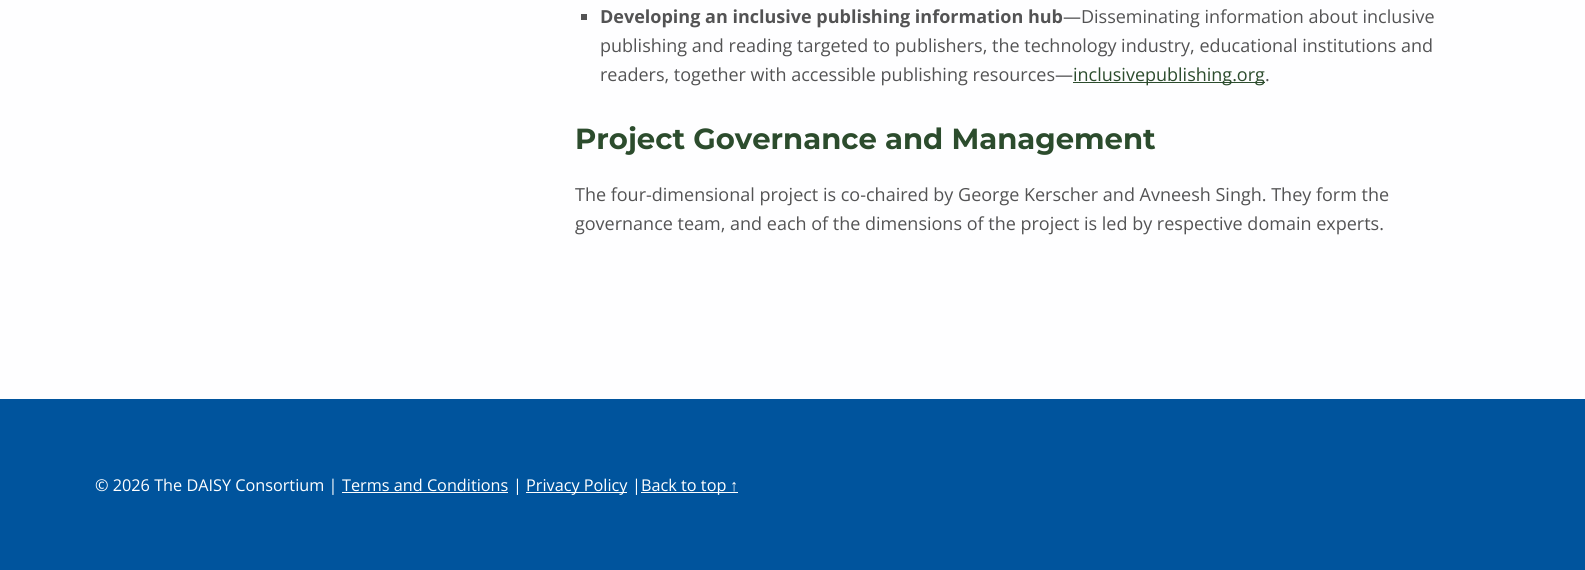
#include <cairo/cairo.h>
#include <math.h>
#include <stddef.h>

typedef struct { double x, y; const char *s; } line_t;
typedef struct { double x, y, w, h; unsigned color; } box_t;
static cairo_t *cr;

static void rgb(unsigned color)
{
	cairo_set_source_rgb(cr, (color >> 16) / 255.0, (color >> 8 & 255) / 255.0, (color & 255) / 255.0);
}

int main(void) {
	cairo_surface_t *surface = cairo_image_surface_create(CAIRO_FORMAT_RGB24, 1585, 570);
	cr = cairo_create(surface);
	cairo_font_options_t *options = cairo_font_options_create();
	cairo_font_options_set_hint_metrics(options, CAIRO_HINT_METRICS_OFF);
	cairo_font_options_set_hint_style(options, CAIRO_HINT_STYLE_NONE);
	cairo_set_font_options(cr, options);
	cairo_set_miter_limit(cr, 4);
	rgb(0xfefeff);
	cairo_paint(cr);
	{
		static const box_t items[] = {
			{581, 14, 6, 6, 0x535354},
			{1073, 82, 192, 1, 0x2c4c2d},
			{0, 399, 1585, 171, 0x00549d},
			{342, 492, 166, 1, 0xfefeff},
			{526, 492, 101, 1, 0xfefeff},
			{641, 492, 97, 1, 0xfefeff},
		};
		for (size_t i = 0; i < sizeof items / sizeof *items; i++) {
			rgb(items[i].color);
			cairo_rectangle(cr, items[i].x, items[i].y, items[i].w, items[i].h);
			cairo_fill(cr);
		}
	}
	cairo_select_font_face(cr, "Open Sans", CAIRO_FONT_SLANT_NORMAL, CAIRO_FONT_WEIGHT_BOLD);
	cairo_set_font_size(cr, 18);
	rgb(0x535354);
	cairo_move_to(cr, 600, 23);
	cairo_show_text(cr, "Developing an inclusive publishing information hub");
	cairo_select_font_face(cr, "Open Sans", CAIRO_FONT_SLANT_NORMAL, CAIRO_FONT_WEIGHT_NORMAL);
	{
		static const line_t items[] = {
			{1063, 23, "—Disseminating information about inclusive"},
			{600, 52, "publishing and reading targeted to publishers, the technology industry, educational institutions and"},
			{600, 81, "readers, together with accessible publishing resources—"},
		};
		for (size_t i = 0; i < sizeof items / sizeof *items; i++) {
			cairo_move_to(cr, items[i].x, items[i].y);
			cairo_show_text(cr, items[i].s);
		}
	}
	rgb(0x2c4c2d);
	cairo_move_to(cr, 1073, 81);
	cairo_show_text(cr, "inclusivepublishing.org");
	rgb(0x535354);
	cairo_move_to(cr, 1265, 81);
	cairo_show_text(cr, ".");
	cairo_select_font_face(cr, "Montserrat", CAIRO_FONT_SLANT_NORMAL, CAIRO_FONT_WEIGHT_BOLD);
	cairo_set_font_size(cr, 29.1);
	rgb(0x2c4c2d);
	cairo_move_to(cr, 575, 149);
	cairo_show_text(cr, "Project Governance and Management");
	cairo_select_font_face(cr, "Open Sans", CAIRO_FONT_SLANT_NORMAL, CAIRO_FONT_WEIGHT_NORMAL);
	cairo_set_font_size(cr, 18);
	rgb(0x535354);
	cairo_move_to(cr, 575, 201);
	cairo_show_text(cr, "The four-dimensional project is co-chaired by George Kerscher and Avneesh Singh. They form the");
	cairo_move_to(cr, 575, 230);
	cairo_show_text(cr, "governance team, and each of the dimensions of the project is led by respective domain experts.");
	cairo_set_font_size(cr, 16.25);
	rgb(0xffffff);
	{
		static const line_t items[] = {
			{95, 491, "© 2026 The DAISY Consortium |"},
			{342, 491, "Terms and Conditions"},
			{513, 491, "|"},
			{526, 491, "Privacy Policy"},
			{632, 491, "|"},
			{641, 491, "Back to top"},
		};
		for (size_t i = 0; i < sizeof items / sizeof *items; i++) {
			cairo_move_to(cr, items[i].x, items[i].y);
			cairo_show_text(cr, items[i].s);
		}
	}
	cairo_select_font_face(cr, "Liberation Sans", CAIRO_FONT_SLANT_NORMAL, CAIRO_FONT_WEIGHT_NORMAL);
	cairo_move_to(cr, 730, 491);
	cairo_show_text(cr, "↑");
	cairo_surface_write_to_png(surface, "page.png");
	cairo_font_options_destroy(options);
	cairo_destroy(cr);
	cairo_surface_destroy(surface);
	return 0;
}
